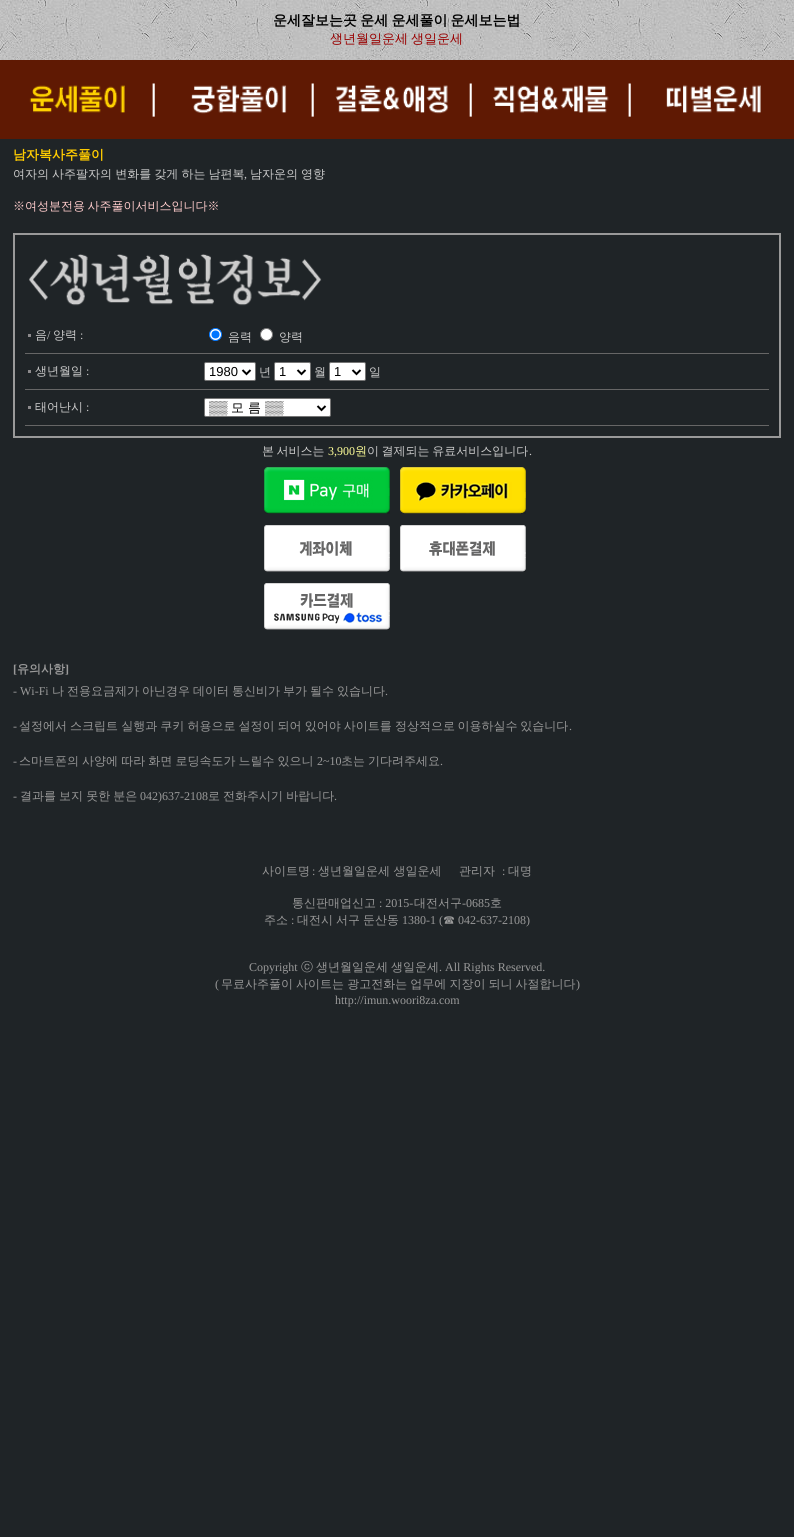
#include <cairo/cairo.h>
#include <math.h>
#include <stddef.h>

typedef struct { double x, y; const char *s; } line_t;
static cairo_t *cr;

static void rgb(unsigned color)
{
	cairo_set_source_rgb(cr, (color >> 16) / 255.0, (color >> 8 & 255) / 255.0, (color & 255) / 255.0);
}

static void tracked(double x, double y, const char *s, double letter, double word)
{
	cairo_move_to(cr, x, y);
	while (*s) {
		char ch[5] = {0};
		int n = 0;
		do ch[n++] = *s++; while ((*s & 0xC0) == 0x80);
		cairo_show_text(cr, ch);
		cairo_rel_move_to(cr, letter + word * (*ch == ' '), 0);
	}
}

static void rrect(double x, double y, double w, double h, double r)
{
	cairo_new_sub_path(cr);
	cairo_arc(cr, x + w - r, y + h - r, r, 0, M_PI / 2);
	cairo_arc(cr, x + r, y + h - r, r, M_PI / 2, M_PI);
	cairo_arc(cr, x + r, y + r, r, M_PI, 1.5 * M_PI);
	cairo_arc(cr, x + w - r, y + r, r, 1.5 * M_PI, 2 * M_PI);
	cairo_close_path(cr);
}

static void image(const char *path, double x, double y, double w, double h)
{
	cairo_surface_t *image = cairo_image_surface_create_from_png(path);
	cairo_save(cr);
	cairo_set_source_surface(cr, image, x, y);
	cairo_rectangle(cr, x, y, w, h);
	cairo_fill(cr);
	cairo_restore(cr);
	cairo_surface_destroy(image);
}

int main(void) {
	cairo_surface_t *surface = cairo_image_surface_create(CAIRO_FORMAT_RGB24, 794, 1537);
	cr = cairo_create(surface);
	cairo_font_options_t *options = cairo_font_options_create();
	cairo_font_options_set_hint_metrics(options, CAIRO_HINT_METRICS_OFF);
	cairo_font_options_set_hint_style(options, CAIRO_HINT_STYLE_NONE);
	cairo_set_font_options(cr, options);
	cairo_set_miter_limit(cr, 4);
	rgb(0x1f2427);
	cairo_paint(cr);
	image("img/1.png", 0, 0, 794, 60);
	rgb(0x5f1903);
	cairo_rectangle(cr, 0, 60, 794, 79);
	cairo_fill(cr);
	image("img/2.png", 29, 83, 126, 34);
	image("img/3.png", 191, 83, 123, 34);
	image("img/4.png", 335, 83, 137, 34);
	image("img/5.png", 493, 83, 138, 34);
	image("img/6.png", 666, 85, 95, 28);
	cairo_rectangle(cr, 13.5, 233.5, 767, 204);
	rgb(0x999999);
	cairo_set_line_width(cr, 1);
	cairo_stroke(cr);
	cairo_rectangle(cr, 14.5, 234.5, 765, 202);
	cairo_stroke(cr);
	image("img/7.png", 29, 254, 293, 52);
	rgb(0x8c8a8c);
	cairo_rectangle(cr, 28, 334, 3, 3);
	cairo_fill(cr);
	rgb(0xffffff);
	cairo_arc(cr, 215.5, 334.5, 6, 0, 2 * M_PI);
	cairo_fill_preserve(cr);
	rgb(0x0075ff);
	cairo_stroke(cr);
	cairo_arc(cr, 215.5, 334.5, 4, 0, 2 * M_PI);
	cairo_fill(cr);
	rgb(0xffffff);
	cairo_arc(cr, 266.5, 334.5, 6, 0, 2 * M_PI);
	cairo_fill_preserve(cr);
	rgb(0x767676);
	cairo_stroke(cr);
	rgb(0x666666);
	cairo_rectangle(cr, 25, 353, 744, 1);
	cairo_fill(cr);
	rgb(0x8c8a8c);
	cairo_rectangle(cr, 28, 370, 3, 3);
	cairo_fill(cr);
	rgb(0xffffff);
	rrect(204.5, 362.5, 51, 18, 1.5);
	cairo_fill_preserve(cr);
	rgb(0x767676);
	cairo_stroke(cr);
	cairo_new_path(cr);
	cairo_move_to(cr, 242.5, 370);
	cairo_line_to(cr, 246.5, 374);
	cairo_line_to(cr, 250.5, 370);
	rgb(0x000000);
	cairo_set_line_width(cr, 2);
	cairo_stroke(cr);
	rgb(0xffffff);
	rrect(274.5, 362.5, 36, 18, 1.5);
	cairo_fill_preserve(cr);
	rgb(0x767676);
	cairo_set_line_width(cr, 1);
	cairo_stroke(cr);
	cairo_new_path(cr);
	cairo_move_to(cr, 297.5, 370);
	cairo_line_to(cr, 301.5, 374);
	cairo_line_to(cr, 305.5, 370);
	rgb(0x000000);
	cairo_set_line_width(cr, 2);
	cairo_stroke(cr);
	rgb(0xffffff);
	rrect(329.5, 362.5, 36, 18, 1.5);
	cairo_fill_preserve(cr);
	rgb(0x767676);
	cairo_set_line_width(cr, 1);
	cairo_stroke(cr);
	cairo_new_path(cr);
	cairo_move_to(cr, 352.5, 370);
	cairo_line_to(cr, 356.5, 374);
	cairo_line_to(cr, 360.5, 370);
	rgb(0x000000);
	cairo_set_line_width(cr, 2);
	cairo_stroke(cr);
	rgb(0x666666);
	cairo_rectangle(cr, 25, 389, 744, 1);
	cairo_fill(cr);
	rgb(0x8c8a8c);
	cairo_rectangle(cr, 28, 406, 3, 3);
	cairo_fill(cr);
	rgb(0xffffff);
	rrect(204.5, 398.5, 126, 18, 1.5);
	cairo_fill_preserve(cr);
	rgb(0x767676);
	cairo_set_line_width(cr, 1);
	cairo_stroke(cr);
	cairo_new_path(cr);
	cairo_move_to(cr, 317.5, 406);
	cairo_line_to(cr, 321.5, 410);
	cairo_line_to(cr, 325.5, 406);
	rgb(0x000000);
	cairo_set_line_width(cr, 2);
	cairo_stroke(cr);
	rgb(0x666666);
	cairo_rectangle(cr, 25, 425, 744, 1);
	cairo_fill(cr);
	image("img/8.png", 264, 467, 126, 47);
	image("img/9.png", 400, 467, 126, 47);
	image("img/10.png", 264, 525, 126, 47);
	image("img/11.png", 400, 525, 126, 47);
	image("img/12.png", 264, 583, 126, 47);
	cairo_select_font_face(cr, "WenQuanYi Zen Hei", CAIRO_FONT_SLANT_NORMAL, CAIRO_FONT_WEIGHT_BOLD);
	cairo_set_font_size(cr, 14);
	rgb(0x000000);
	tracked(273, 25, "운세잘보는곳 운세 운세풀이 운세보는법", 0, -1);
	cairo_select_font_face(cr, "WenQuanYi Zen Hei Medium", CAIRO_FONT_SLANT_NORMAL, CAIRO_FONT_WEIGHT_NORMAL);
	cairo_set_font_size(cr, 13);
	rgb(0x990000);
	tracked(330, 43, "생년월일운세 생일운세", 0, -1);
	cairo_select_font_face(cr, "WenQuanYi Zen Hei", CAIRO_FONT_SLANT_NORMAL, CAIRO_FONT_WEIGHT_BOLD);
	rgb(0xffcc00);
	cairo_move_to(cr, 13, 159);
	cairo_show_text(cr, "남자복사주풀이");
	cairo_select_font_face(cr, "WenQuanYi Zen Hei Medium", CAIRO_FONT_SLANT_NORMAL, CAIRO_FONT_WEIGHT_NORMAL);
	cairo_set_font_size(cr, 12);
	rgb(0xcccccc);
	tracked(13, 178, "여자의 사주팔자의 변화를 갖게 하는 남편복", 0, -0.5);
	cairo_select_font_face(cr, "Liberation Serif", CAIRO_FONT_SLANT_NORMAL, CAIRO_FONT_WEIGHT_NORMAL);
	cairo_move_to(cr, 244, 178);
	cairo_show_text(cr, ",");
	cairo_select_font_face(cr, "WenQuanYi Zen Hei Medium", CAIRO_FONT_SLANT_NORMAL, CAIRO_FONT_WEIGHT_NORMAL);
	tracked(250, 178, "남자운의 영향", 0, -0.5);
	rgb(0xffcccc);
	tracked(13, 210, "※여성분전용 사주풀이서비스입니다※", 0, -1);
	rgb(0xcccccc);
	cairo_move_to(cr, 35, 339);
	cairo_show_text(cr, "음");
	cairo_select_font_face(cr, "Liberation Serif", CAIRO_FONT_SLANT_NORMAL, CAIRO_FONT_WEIGHT_NORMAL);
	cairo_move_to(cr, 47, 339);
	cairo_show_text(cr, "/");
	cairo_select_font_face(cr, "WenQuanYi Zen Hei Medium", CAIRO_FONT_SLANT_NORMAL, CAIRO_FONT_WEIGHT_NORMAL);
	cairo_move_to(cr, 53, 339);
	cairo_show_text(cr, "양력");
	cairo_select_font_face(cr, "Liberation Serif", CAIRO_FONT_SLANT_NORMAL, CAIRO_FONT_WEIGHT_NORMAL);
	cairo_move_to(cr, 80, 339);
	cairo_show_text(cr, ":");
	cairo_select_font_face(cr, "WenQuanYi Zen Hei Medium", CAIRO_FONT_SLANT_NORMAL, CAIRO_FONT_WEIGHT_NORMAL);
	{
		static const line_t items[] = {
			{228, 341, "음력"},
			{279, 341, "양력"},
			{35, 375, "생년월일"},
		};
		for (size_t i = 0; i < sizeof items / sizeof *items; i++) {
			cairo_move_to(cr, items[i].x, items[i].y);
			cairo_show_text(cr, items[i].s);
		}
	}
	cairo_select_font_face(cr, "Liberation Serif", CAIRO_FONT_SLANT_NORMAL, CAIRO_FONT_WEIGHT_NORMAL);
	cairo_move_to(cr, 86, 375);
	cairo_show_text(cr, ":");
	cairo_select_font_face(cr, "Liberation Sans", CAIRO_FONT_SLANT_NORMAL, CAIRO_FONT_WEIGHT_NORMAL);
	cairo_set_font_size(cr, 13);
	rgb(0x000000);
	cairo_move_to(cr, 209, 376);
	cairo_show_text(cr, "1980");
	cairo_select_font_face(cr, "WenQuanYi Zen Hei Medium", CAIRO_FONT_SLANT_NORMAL, CAIRO_FONT_WEIGHT_NORMAL);
	cairo_set_font_size(cr, 12);
	rgb(0xcccccc);
	cairo_move_to(cr, 259, 376);
	cairo_show_text(cr, "년");
	cairo_select_font_face(cr, "Liberation Sans", CAIRO_FONT_SLANT_NORMAL, CAIRO_FONT_WEIGHT_NORMAL);
	cairo_set_font_size(cr, 13);
	rgb(0x000000);
	cairo_move_to(cr, 279, 376);
	cairo_show_text(cr, "1");
	cairo_select_font_face(cr, "WenQuanYi Zen Hei Medium", CAIRO_FONT_SLANT_NORMAL, CAIRO_FONT_WEIGHT_NORMAL);
	cairo_set_font_size(cr, 12);
	rgb(0xcccccc);
	cairo_move_to(cr, 314, 376);
	cairo_show_text(cr, "월");
	cairo_select_font_face(cr, "Liberation Sans", CAIRO_FONT_SLANT_NORMAL, CAIRO_FONT_WEIGHT_NORMAL);
	cairo_set_font_size(cr, 13);
	rgb(0x000000);
	cairo_move_to(cr, 334, 376);
	cairo_show_text(cr, "1");
	cairo_select_font_face(cr, "WenQuanYi Zen Hei Medium", CAIRO_FONT_SLANT_NORMAL, CAIRO_FONT_WEIGHT_NORMAL);
	cairo_set_font_size(cr, 12);
	rgb(0xcccccc);
	cairo_move_to(cr, 369, 376);
	cairo_show_text(cr, "일");
	cairo_move_to(cr, 35, 411);
	cairo_show_text(cr, "태어난시");
	cairo_select_font_face(cr, "Liberation Serif", CAIRO_FONT_SLANT_NORMAL, CAIRO_FONT_WEIGHT_NORMAL);
	cairo_move_to(cr, 86, 411);
	cairo_show_text(cr, ":");
	cairo_save(cr);
	cairo_rectangle(cr, 209, 399, 105, 17);
	cairo_clip(cr);
	cairo_select_font_face(cr, "Liberation Sans", CAIRO_FONT_SLANT_NORMAL, CAIRO_FONT_WEIGHT_NORMAL);
	cairo_set_font_size(cr, 13);
	rgb(0x000000);
	cairo_move_to(cr, 209, 412);
	cairo_show_text(cr, "▒▒");
	cairo_restore(cr);
	cairo_select_font_face(cr, "WenQuanYi Zen Hei Medium", CAIRO_FONT_SLANT_NORMAL, CAIRO_FONT_WEIGHT_NORMAL);
	cairo_set_font_size(cr, 13);
	rgb(0x000000);
	cairo_move_to(cr, 231, 412);
	cairo_show_text(cr, "모 름");
	cairo_select_font_face(cr, "Liberation Sans", CAIRO_FONT_SLANT_NORMAL, CAIRO_FONT_WEIGHT_NORMAL);
	cairo_move_to(cr, 265, 412);
	cairo_show_text(cr, "▒▒");
	cairo_select_font_face(cr, "WenQuanYi Zen Hei Medium", CAIRO_FONT_SLANT_NORMAL, CAIRO_FONT_WEIGHT_NORMAL);
	cairo_set_font_size(cr, 12);
	rgb(0xcccccc);
	tracked(262, 455, "본 서비스는", 0, -1);
	cairo_select_font_face(cr, "Liberation Serif", CAIRO_FONT_SLANT_NORMAL, CAIRO_FONT_WEIGHT_NORMAL);
	rgb(0xffff99);
	cairo_move_to(cr, 328, 455);
	cairo_show_text(cr, "3,900");
	cairo_select_font_face(cr, "WenQuanYi Zen Hei Medium", CAIRO_FONT_SLANT_NORMAL, CAIRO_FONT_WEIGHT_NORMAL);
	cairo_move_to(cr, 355, 455);
	cairo_show_text(cr, "원");
	rgb(0xcccccc);
	tracked(367, 455, "이 결제되는 유료서비스입니다", 0, -1);
	cairo_select_font_face(cr, "Liberation Serif", CAIRO_FONT_SLANT_NORMAL, CAIRO_FONT_WEIGHT_NORMAL);
	cairo_move_to(cr, 529, 455);
	cairo_show_text(cr, ".");
	cairo_select_font_face(cr, "Liberation Serif", CAIRO_FONT_SLANT_NORMAL, CAIRO_FONT_WEIGHT_BOLD);
	rgb(0x999999);
	cairo_move_to(cr, 13, 673);
	cairo_show_text(cr, "[");
	cairo_select_font_face(cr, "WenQuanYi Zen Hei", CAIRO_FONT_SLANT_NORMAL, CAIRO_FONT_WEIGHT_BOLD);
	cairo_move_to(cr, 17, 673);
	cairo_show_text(cr, "유의사항");
	cairo_select_font_face(cr, "Liberation Serif", CAIRO_FONT_SLANT_NORMAL, CAIRO_FONT_WEIGHT_BOLD);
	cairo_move_to(cr, 65, 673);
	cairo_show_text(cr, "]");
	cairo_select_font_face(cr, "Liberation Serif", CAIRO_FONT_SLANT_NORMAL, CAIRO_FONT_WEIGHT_NORMAL);
	cairo_move_to(cr, 13, 695);
	cairo_show_text(cr, "- Wi-Fi");
	cairo_select_font_face(cr, "WenQuanYi Zen Hei Medium", CAIRO_FONT_SLANT_NORMAL, CAIRO_FONT_WEIGHT_NORMAL);
	{
		static const line_t items[] = {
			{52, 695, "나"},
			{67, 695, "전용요금제가"},
			{142, 695, "아닌경우"},
			{193, 695, "데이터"},
			{232, 695, "통신비가"},
			{283, 695, "부가"},
			{310, 695, "될수"},
			{337, 695, "있습니다"},
		};
		for (size_t i = 0; i < sizeof items / sizeof *items; i++) {
			cairo_move_to(cr, items[i].x, items[i].y);
			cairo_show_text(cr, items[i].s);
		}
	}
	cairo_select_font_face(cr, "Liberation Serif", CAIRO_FONT_SLANT_NORMAL, CAIRO_FONT_WEIGHT_NORMAL);
	cairo_move_to(cr, 385, 695);
	cairo_show_text(cr, ".");
	cairo_move_to(cr, 13, 730);
	cairo_show_text(cr, "-");
	cairo_select_font_face(cr, "WenQuanYi Zen Hei Medium", CAIRO_FONT_SLANT_NORMAL, CAIRO_FONT_WEIGHT_NORMAL);
	tracked(19, 730, "설정에서 스크립트 실행과 쿠키 허용으로 설정이 되어 있어야 사이트를", 0, -0.5);
	tracked(395, 730, "정상적으로 이용하실수 있습니다", 0, -1);
	cairo_select_font_face(cr, "Liberation Serif", CAIRO_FONT_SLANT_NORMAL, CAIRO_FONT_WEIGHT_NORMAL);
	cairo_move_to(cr, 569, 730);
	cairo_show_text(cr, ".");
	cairo_move_to(cr, 13, 765);
	cairo_show_text(cr, "-");
	cairo_select_font_face(cr, "WenQuanYi Zen Hei Medium", CAIRO_FONT_SLANT_NORMAL, CAIRO_FONT_WEIGHT_NORMAL);
	tracked(19, 765, "스마트폰의 사양에 따라 화면 로딩속도가 느릴수 있으니", 0, -0.5);
	cairo_select_font_face(cr, "Liberation Serif", CAIRO_FONT_SLANT_NORMAL, CAIRO_FONT_WEIGHT_NORMAL);
	cairo_move_to(cr, 317, 765);
	cairo_show_text(cr, "2~10");
	cairo_select_font_face(cr, "WenQuanYi Zen Hei Medium", CAIRO_FONT_SLANT_NORMAL, CAIRO_FONT_WEIGHT_NORMAL);
	cairo_move_to(cr, 341, 765);
	cairo_show_text(cr, "초는");
	cairo_move_to(cr, 368, 765);
	cairo_show_text(cr, "기다려주세요");
	cairo_select_font_face(cr, "Liberation Serif", CAIRO_FONT_SLANT_NORMAL, CAIRO_FONT_WEIGHT_NORMAL);
	cairo_move_to(cr, 440, 765);
	cairo_show_text(cr, ".");
	cairo_move_to(cr, 13, 800);
	cairo_show_text(cr, "-");
	cairo_select_font_face(cr, "WenQuanYi Zen Hei Medium", CAIRO_FONT_SLANT_NORMAL, CAIRO_FONT_WEIGHT_NORMAL);
	tracked(20, 800, "결과를 보지 못한 분은", 0, -0.5);
	cairo_select_font_face(cr, "Liberation Serif", CAIRO_FONT_SLANT_NORMAL, CAIRO_FONT_WEIGHT_NORMAL);
	cairo_move_to(cr, 140, 800);
	cairo_show_text(cr, "042)637-2108");
	cairo_select_font_face(cr, "WenQuanYi Zen Hei Medium", CAIRO_FONT_SLANT_NORMAL, CAIRO_FONT_WEIGHT_NORMAL);
	tracked(208, 800, "로 전화주시기 바랍니다", 0, -0.5);
	cairo_select_font_face(cr, "Liberation Serif", CAIRO_FONT_SLANT_NORMAL, CAIRO_FONT_WEIGHT_NORMAL);
	cairo_move_to(cr, 334, 800);
	cairo_show_text(cr, ".");
	cairo_select_font_face(cr, "WenQuanYi Zen Hei Medium", CAIRO_FONT_SLANT_NORMAL, CAIRO_FONT_WEIGHT_NORMAL);
	cairo_move_to(cr, 262, 875);
	cairo_show_text(cr, "사이트명");
	cairo_select_font_face(cr, "Liberation Serif", CAIRO_FONT_SLANT_NORMAL, CAIRO_FONT_WEIGHT_NORMAL);
	cairo_move_to(cr, 312, 875);
	cairo_show_text(cr, ":");
	cairo_select_font_face(cr, "WenQuanYi Zen Hei Medium", CAIRO_FONT_SLANT_NORMAL, CAIRO_FONT_WEIGHT_NORMAL);
	cairo_move_to(cr, 318, 875);
	cairo_show_text(cr, "생년월일운세 생일운세");
	cairo_move_to(cr, 459, 875);
	cairo_show_text(cr, "관리자");
	cairo_select_font_face(cr, "Liberation Serif", CAIRO_FONT_SLANT_NORMAL, CAIRO_FONT_WEIGHT_NORMAL);
	cairo_move_to(cr, 502, 875);
	cairo_show_text(cr, ":");
	cairo_select_font_face(cr, "WenQuanYi Zen Hei Medium", CAIRO_FONT_SLANT_NORMAL, CAIRO_FONT_WEIGHT_NORMAL);
	cairo_move_to(cr, 508, 875);
	cairo_show_text(cr, "대명");
	cairo_move_to(cr, 292, 907);
	cairo_show_text(cr, "통신판매업신고");
	cairo_select_font_face(cr, "Liberation Serif", CAIRO_FONT_SLANT_NORMAL, CAIRO_FONT_WEIGHT_NORMAL);
	cairo_move_to(cr, 379, 907);
	cairo_show_text(cr, ": 2015-");
	cairo_select_font_face(cr, "WenQuanYi Zen Hei Medium", CAIRO_FONT_SLANT_NORMAL, CAIRO_FONT_WEIGHT_NORMAL);
	cairo_move_to(cr, 414, 907);
	cairo_show_text(cr, "대전서구");
	cairo_select_font_face(cr, "Liberation Serif", CAIRO_FONT_SLANT_NORMAL, CAIRO_FONT_WEIGHT_NORMAL);
	cairo_move_to(cr, 462, 907);
	cairo_show_text(cr, "-0685");
	cairo_select_font_face(cr, "WenQuanYi Zen Hei Medium", CAIRO_FONT_SLANT_NORMAL, CAIRO_FONT_WEIGHT_NORMAL);
	cairo_move_to(cr, 490, 907);
	cairo_show_text(cr, "호");
	cairo_move_to(cr, 264, 924);
	cairo_show_text(cr, "주소");
	cairo_select_font_face(cr, "Liberation Serif", CAIRO_FONT_SLANT_NORMAL, CAIRO_FONT_WEIGHT_NORMAL);
	cairo_move_to(cr, 291, 924);
	cairo_show_text(cr, ":");
	cairo_select_font_face(cr, "WenQuanYi Zen Hei Medium", CAIRO_FONT_SLANT_NORMAL, CAIRO_FONT_WEIGHT_NORMAL);
	{
		static const line_t items[] = {
			{297, 924, "대전시"},
			{336, 924, "서구"},
			{363, 924, "둔산동"},
		};
		for (size_t i = 0; i < sizeof items / sizeof *items; i++) {
			cairo_move_to(cr, items[i].x, items[i].y);
			cairo_show_text(cr, items[i].s);
		}
	}
	cairo_select_font_face(cr, "Liberation Serif", CAIRO_FONT_SLANT_NORMAL, CAIRO_FONT_WEIGHT_NORMAL);
	cairo_move_to(cr, 402, 924);
	cairo_show_text(cr, "1380-1 (");
	cairo_select_font_face(cr, "WenQuanYi Zen Hei Medium", CAIRO_FONT_SLANT_NORMAL, CAIRO_FONT_WEIGHT_NORMAL);
	cairo_move_to(cr, 443, 924);
	cairo_show_text(cr, "☎");
	cairo_select_font_face(cr, "Liberation Serif", CAIRO_FONT_SLANT_NORMAL, CAIRO_FONT_WEIGHT_NORMAL);
	cairo_move_to(cr, 458, 924);
	cairo_show_text(cr, "042-637-2108)");
	cairo_move_to(cr, 249, 971);
	cairo_show_text(cr, "Copyright");
	cairo_select_font_face(cr, "WenQuanYi Zen Hei Medium", CAIRO_FONT_SLANT_NORMAL, CAIRO_FONT_WEIGHT_NORMAL);
	{
		static const line_t items[] = {
			{301, 971, "ⓒ"},
			{316, 971, "생년월일운세"},
			{391, 971, "생일운세"},
		};
		for (size_t i = 0; i < sizeof items / sizeof *items; i++) {
			cairo_move_to(cr, items[i].x, items[i].y);
			cairo_show_text(cr, items[i].s);
		}
	}
	cairo_select_font_face(cr, "Liberation Serif", CAIRO_FONT_SLANT_NORMAL, CAIRO_FONT_WEIGHT_NORMAL);
	cairo_move_to(cr, 439, 971);
	cairo_show_text(cr, ". All Rights Reserved.");
	cairo_move_to(cr, 215, 988);
	cairo_show_text(cr, "(");
	cairo_select_font_face(cr, "WenQuanYi Zen Hei Medium", CAIRO_FONT_SLANT_NORMAL, CAIRO_FONT_WEIGHT_NORMAL);
	tracked(221, 988, "무료사주풀이 사이트는 광고전화는 업무에 지장이 되니 사절합니다", 0, -0.5);
	cairo_select_font_face(cr, "Liberation Serif", CAIRO_FONT_SLANT_NORMAL, CAIRO_FONT_WEIGHT_NORMAL);
	cairo_move_to(cr, 576, 988);
	cairo_show_text(cr, ")");
	cairo_move_to(cr, 335, 1004);
	cairo_show_text(cr, "http://imun.woori8za.com");
	cairo_surface_write_to_png(surface, "page.png");
	cairo_font_options_destroy(options);
	cairo_destroy(cr);
	cairo_surface_destroy(surface);
	return 0;
}
